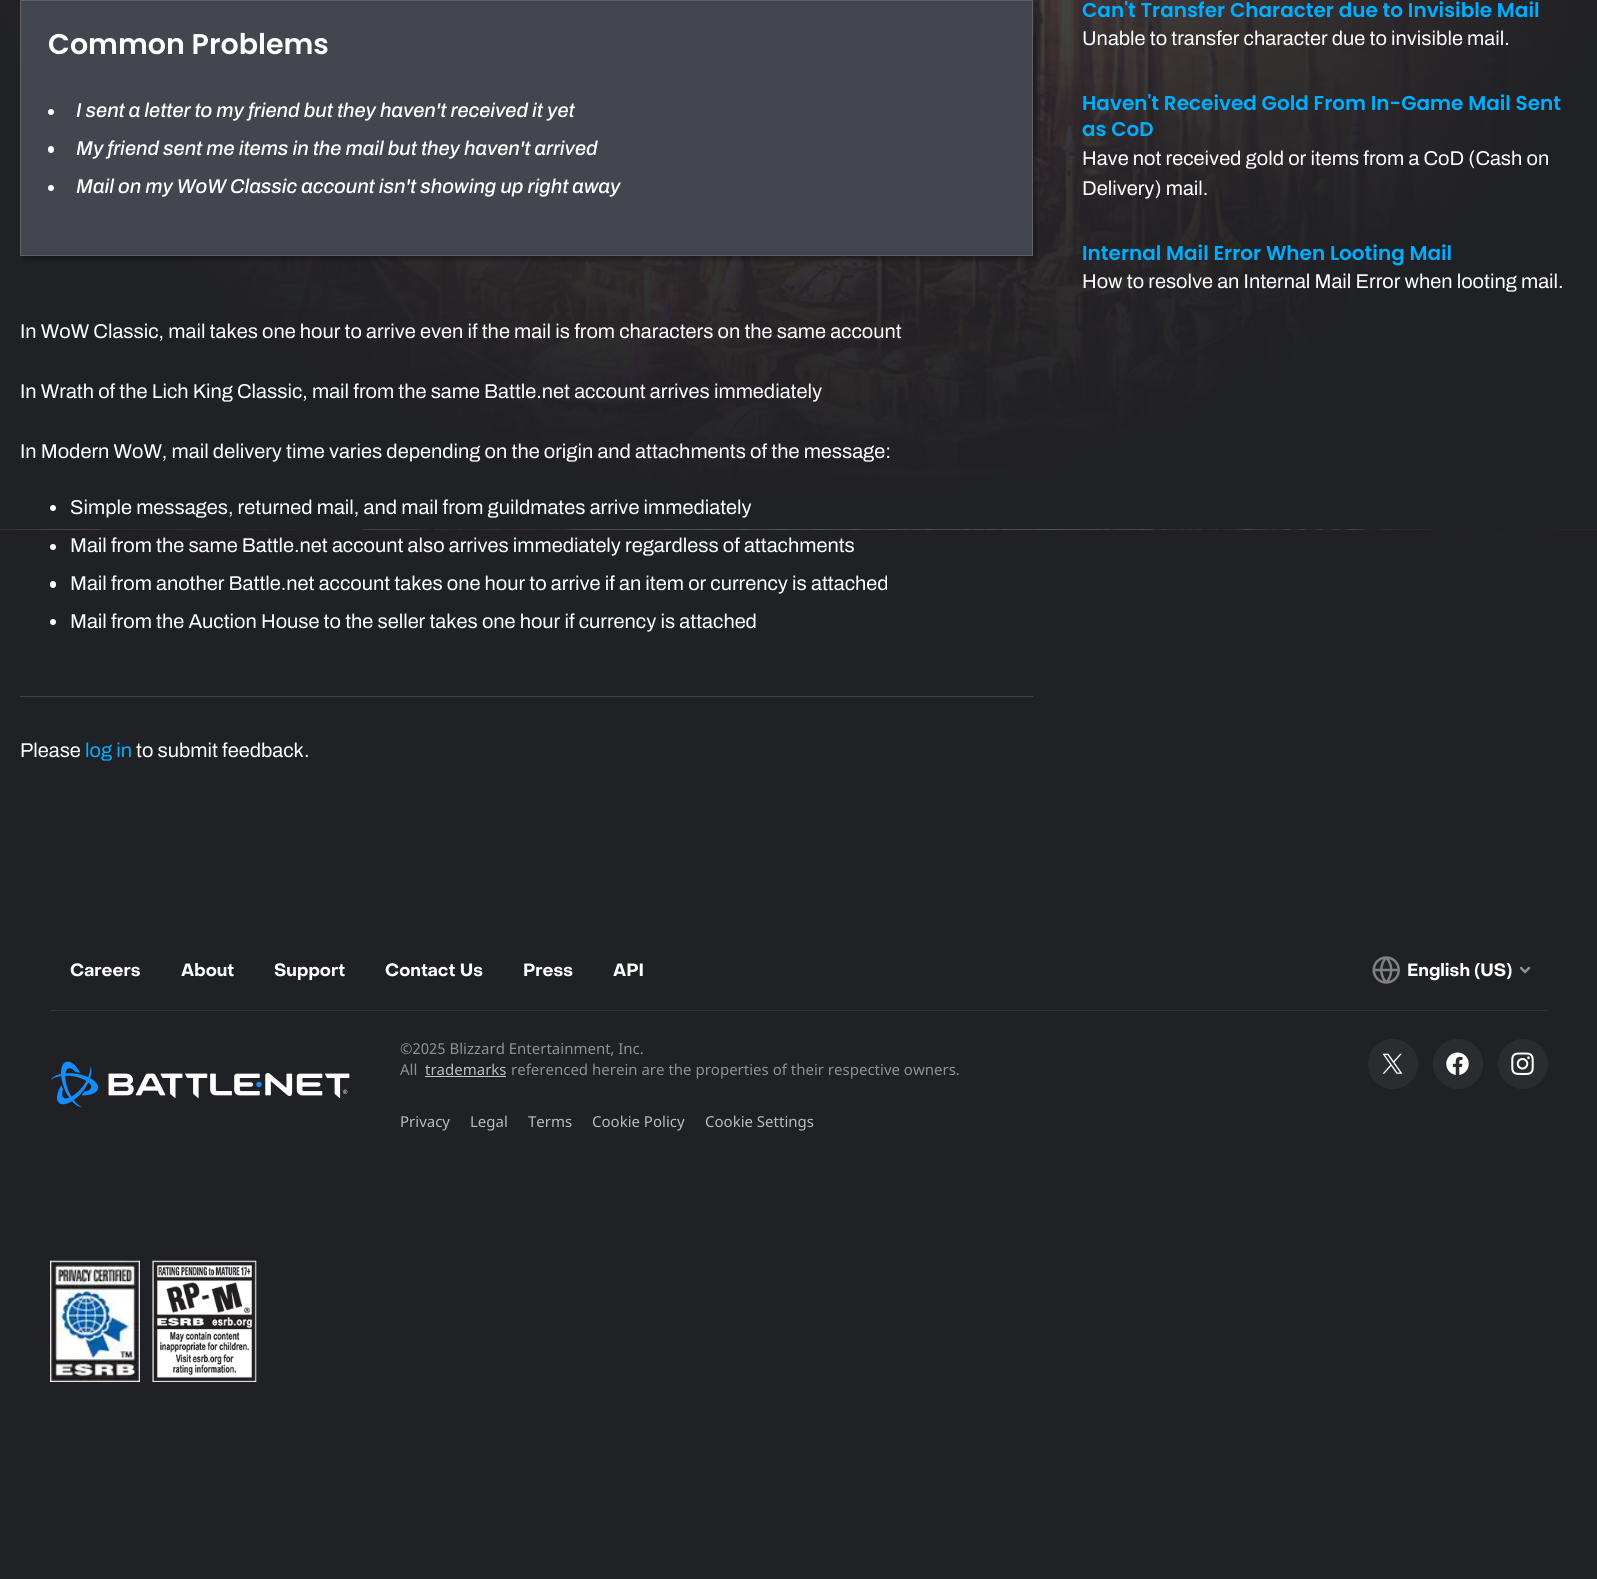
#include <cairo/cairo.h>
#include <math.h>
#include <stddef.h>

typedef struct { double x, y; const char *s; } line_t;
static cairo_t *cr;

static void rgb(unsigned color)
{
	cairo_set_source_rgb(cr, (color >> 16) / 255.0, (color >> 8 & 255) / 255.0, (color & 255) / 255.0);
}

static void rrect(double x, double y, double w, double h, double r)
{
	cairo_new_sub_path(cr);
	cairo_arc(cr, x + w - r, y + h - r, r, 0, M_PI / 2);
	cairo_arc(cr, x + r, y + h - r, r, M_PI / 2, M_PI);
	cairo_arc(cr, x + r, y + r, r, M_PI, 1.5 * M_PI);
	cairo_arc(cr, x + w - r, y + r, r, 1.5 * M_PI, 2 * M_PI);
	cairo_close_path(cr);
}

static void soft_shadow(double x, double y, double w, double h, double r, double blur, double alpha)
{
	cairo_push_group_with_content(cr, CAIRO_CONTENT_ALPHA);
	cairo_set_operator(cr, CAIRO_OPERATOR_SOURCE);
	for (int i = 15; i >= -15 && fmin(w, h) + blur * i / 3 > 0; i -= 2) {
		double e = blur * i / 6;
		cairo_set_source_rgba(cr, 0, 0, 0, alpha * erfc((i - 1) / 8.5) / 2);
		rrect(x - e, y - e, w + 2 * e, h + 2 * e, fmax(0, fmin(r + e + blur * .6, fmin(w, h) / 2 + e)));
		cairo_fill(cr);
	}
	cairo_pattern_t *soft = cairo_pop_group(cr);
	cairo_mask(cr, soft);
	cairo_pattern_destroy(soft);
}

static void image(const char *path, double x, double y, double w, double h)
{
	cairo_surface_t *image = cairo_image_surface_create_from_png(path);
	cairo_save(cr);
	cairo_set_source_surface(cr, image, x, y);
	cairo_rectangle(cr, x, y, w, h);
	cairo_fill(cr);
	cairo_restore(cr);
	cairo_surface_destroy(image);
}

int main(void) {
	cairo_surface_t *surface = cairo_image_surface_create(CAIRO_FORMAT_RGB24, 1597, 1579);
	cr = cairo_create(surface);
	cairo_font_options_t *options = cairo_font_options_create();
	cairo_font_options_set_hint_metrics(options, CAIRO_HINT_METRICS_OFF);
	cairo_font_options_set_hint_style(options, CAIRO_HINT_STYLE_NONE);
	cairo_set_font_options(cr, options);
	cairo_set_miter_limit(cr, 4);
	rgb(0x202125);
	cairo_paint(cr);
	image("img/1.png", 0, 0, 1597, 530);
	rgb(0x000000);
	soft_shadow(24, 4, 1012, 256, 0, 2, 0.3);
	rgb(0x43464e);
	cairo_rectangle(cr, 20.5, 0.5, 1012, 255);
	cairo_fill_preserve(cr);
	rgb(0x5f6269);
	cairo_set_line_width(cr, 1);
	cairo_stroke(cr);
	rgb(0xffffff);
	cairo_arc(cr, 51, 112, 3, 0, 2 * M_PI);
	cairo_fill(cr);
	rrect(48, 146, 6, 7, 3);
	cairo_fill(cr);
	cairo_arc(cr, 51, 188, 3, 0, 2 * M_PI);
	cairo_fill(cr);
	cairo_arc(cr, 53, 508, 3, 0, 2 * M_PI);
	cairo_fill(cr);
	cairo_arc(cr, 53, 547, 3, 0, 2 * M_PI);
	cairo_fill(cr);
	rrect(50, 581, 6, 7, 3);
	cairo_fill(cr);
	cairo_arc(cr, 53, 622, 3, 0, 2 * M_PI);
	cairo_fill(cr);
	rgb(0x414246);
	cairo_rectangle(cr, 20, 696, 1013, 1);
	cairo_fill(cr);
	image("img/2.png", 1372, 956, 28, 28);
	cairo_new_path(cr);
	cairo_move_to(cr, 1521, 968);
	cairo_line_to(cr, 1525, 972);
	cairo_line_to(cr, 1529, 968);
	rgb(0x909092);
	cairo_set_line_width(cr, 2.5);
	cairo_set_line_cap(cr, CAIRO_LINE_CAP_ROUND);
	cairo_set_line_join(cr, CAIRO_LINE_JOIN_ROUND);
	cairo_stroke(cr);
	rgb(0x313236);
	cairo_new_path(cr);
	cairo_move_to(cr, 50, 1010);
	cairo_line_to(cr, 1548, 1010);
	cairo_line_to(cr, 1546, 1011);
	cairo_line_to(cr, 51, 1011);
	cairo_close_path(cr);
	cairo_fill(cr);
	cairo_set_source_rgba(cr, 1, 1, 1, 0.12);
	cairo_new_path(cr);
	cairo_move_to(cr, 1547.5, 1010);
	cairo_line_to(cr, 1547.5, 1011);
	cairo_line_to(cr, 1546, 1011);
	cairo_close_path(cr);
	cairo_fill(cr);
	rgb(0x38393d);
	cairo_new_path(cr);
	cairo_move_to(cr, 50, 1011);
	cairo_line_to(cr, 50, 1010);
	cairo_line_to(cr, 51, 1011);
	cairo_close_path(cr);
	cairo_fill(cr);
	image("img/3.png", 51, 1061, 299, 47);
	rgb(0xc8c8c9);
	cairo_rectangle(cr, 425, 1076, 81, 1);
	cairo_fill(cr);
	rgb(0x2b2c30);
	cairo_arc(cr, 1393, 1064, 25, 0, 2 * M_PI);
	cairo_fill(cr);
	image("img/4.png", 1382, 1053, 21, 21);
	cairo_arc(cr, 1458, 1064, 25, 0, 2 * M_PI);
	cairo_fill(cr);
	image("img/5.png", 1446, 1052, 23, 23);
	cairo_arc(cr, 1523, 1064, 25, 0, 2 * M_PI);
	cairo_fill(cr);
	image("img/6.png", 1511, 1052, 23, 23);
	image("img/7.png", 50, 1260, 90, 122);
	image("img/8.png", 152, 1260, 105, 122);
	cairo_select_font_face(cr, "Poppins SemiBold", CAIRO_FONT_SLANT_NORMAL, CAIRO_FONT_WEIGHT_NORMAL);
	cairo_set_font_size(cr, 28.5);
	rgb(0xffffff);
	cairo_move_to(cr, 48, 54);
	cairo_show_text(cr, "Common Problems");
	cairo_select_font_face(cr, "Archivo Medium", CAIRO_FONT_SLANT_ITALIC, CAIRO_FONT_WEIGHT_NORMAL);
	cairo_set_font_size(cr, 20);
	{
		static const line_t items[] = {
			{76, 117, "I sent a letter to my friend but they haven't received it yet"},
			{76, 155, "My friend sent me items in the mail but they haven't arrived"},
			{76, 193, "Mail on my WoW Classic account isn't showing up right away"},
		};
		for (size_t i = 0; i < sizeof items / sizeof *items; i++) {
			cairo_move_to(cr, items[i].x, items[i].y);
			cairo_show_text(cr, items[i].s);
		}
	}
	cairo_select_font_face(cr, "Archivo", CAIRO_FONT_SLANT_NORMAL, CAIRO_FONT_WEIGHT_NORMAL);
	{
		static const line_t items[] = {
			{20, 338, "In WoW Classic, mail takes one hour to arrive even if the mail is from characters on the same account"},
			{20, 398, "In Wrath of the Lich King Classic, mail from the same Battle.net account arrives immediately"},
			{20, 458, "In Modern WoW, mail delivery time varies depending on the origin and attachments of the message:"},
			{70, 514, "Simple messages, returned mail, and mail from guildmates arrive immediately"},
			{70, 552, "Mail from the same Battle.net account also arrives immediately regardless of attachments"},
			{70, 590, "Mail from another Battle.net account takes one hour to arrive if an item or currency is attached"},
			{70, 628, "Mail from the Auction House to the seller takes one hour if currency is attached"},
			{20, 757, "Please"},
		};
		for (size_t i = 0; i < sizeof items / sizeof *items; i++) {
			cairo_move_to(cr, items[i].x, items[i].y);
			cairo_show_text(cr, items[i].s);
		}
	}
	rgb(0x00aeff);
	cairo_move_to(cr, 85, 757);
	cairo_show_text(cr, "log in");
	rgb(0xffffff);
	cairo_move_to(cr, 136, 757);
	cairo_show_text(cr, "to submit feedback.");
	cairo_select_font_face(cr, "Poppins SemiBold", CAIRO_FONT_SLANT_NORMAL, CAIRO_FONT_WEIGHT_NORMAL);
	rgb(0x00aeff);
	cairo_move_to(cr, 1082, 17);
	cairo_show_text(cr, "Can't Transfer Character due to Invisible Mail");
	cairo_select_font_face(cr, "Archivo", CAIRO_FONT_SLANT_NORMAL, CAIRO_FONT_WEIGHT_NORMAL);
	rgb(0xffffff);
	cairo_move_to(cr, 1082, 45);
	cairo_show_text(cr, "Unable to transfer character due to invisible mail.");
	cairo_select_font_face(cr, "Poppins SemiBold", CAIRO_FONT_SLANT_NORMAL, CAIRO_FONT_WEIGHT_NORMAL);
	rgb(0x00aeff);
	cairo_move_to(cr, 1082, 110);
	cairo_show_text(cr, "Haven't Received Gold From In-Game Mail Sent");
	cairo_move_to(cr, 1082, 136);
	cairo_show_text(cr, "as CoD");
	cairo_select_font_face(cr, "Archivo", CAIRO_FONT_SLANT_NORMAL, CAIRO_FONT_WEIGHT_NORMAL);
	rgb(0xffffff);
	cairo_move_to(cr, 1082, 165);
	cairo_show_text(cr, "Have not received gold or items from a CoD (Cash on");
	cairo_move_to(cr, 1082, 195);
	cairo_show_text(cr, "Delivery) mail.");
	cairo_select_font_face(cr, "Poppins SemiBold", CAIRO_FONT_SLANT_NORMAL, CAIRO_FONT_WEIGHT_NORMAL);
	rgb(0x00aeff);
	cairo_move_to(cr, 1082, 260);
	cairo_show_text(cr, "Internal Mail Error When Looting Mail");
	cairo_select_font_face(cr, "Archivo", CAIRO_FONT_SLANT_NORMAL, CAIRO_FONT_WEIGHT_NORMAL);
	rgb(0xffffff);
	cairo_move_to(cr, 1082, 288);
	cairo_show_text(cr, "How to resolve an Internal Mail Error when looting mail.");
	cairo_select_font_face(cr, "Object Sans", CAIRO_FONT_SLANT_NORMAL, CAIRO_FONT_WEIGHT_BOLD);
	cairo_set_font_size(cr, 17.5);
	{
		static const line_t items[] = {
			{70, 976, "Careers"},
			{181, 976, "About"},
			{274, 976, "Support"},
			{385, 976, "Contact Us"},
			{523, 976, "Press"},
			{613, 976, "API"},
			{1407, 976, "English (US)"},
		};
		for (size_t i = 0; i < sizeof items / sizeof *items; i++) {
			cairo_move_to(cr, items[i].x, items[i].y);
			cairo_show_text(cr, items[i].s);
		}
	}
	cairo_select_font_face(cr, "Noto Sans", CAIRO_FONT_SLANT_NORMAL, CAIRO_FONT_WEIGHT_NORMAL);
	cairo_set_font_size(cr, 15);
	rgb(0x909092);
	cairo_move_to(cr, 400, 1054);
	cairo_show_text(cr, "©2025 Blizzard Entertainment, Inc.");
	cairo_move_to(cr, 400, 1075);
	cairo_show_text(cr, "All");
	rgb(0xbcbcbe);
	cairo_move_to(cr, 425, 1075);
	cairo_show_text(cr, "trademarks");
	rgb(0x909092);
	cairo_move_to(cr, 511, 1075);
	cairo_show_text(cr, "referenced herein are the properties of their respective owners.");
	rgb(0xbcbcbe);
	{
		static const line_t items[] = {
			{400, 1127, "Privacy"},
			{470, 1127, "Legal"},
			{528, 1127, "Terms"},
			{592, 1127, "Cookie Policy"},
			{705, 1127, "Cookie Settings"},
		};
		for (size_t i = 0; i < sizeof items / sizeof *items; i++) {
			cairo_move_to(cr, items[i].x, items[i].y);
			cairo_show_text(cr, items[i].s);
		}
	}
	cairo_surface_write_to_png(surface, "page.png");
	cairo_font_options_destroy(options);
	cairo_destroy(cr);
	cairo_surface_destroy(surface);
	return 0;
}
